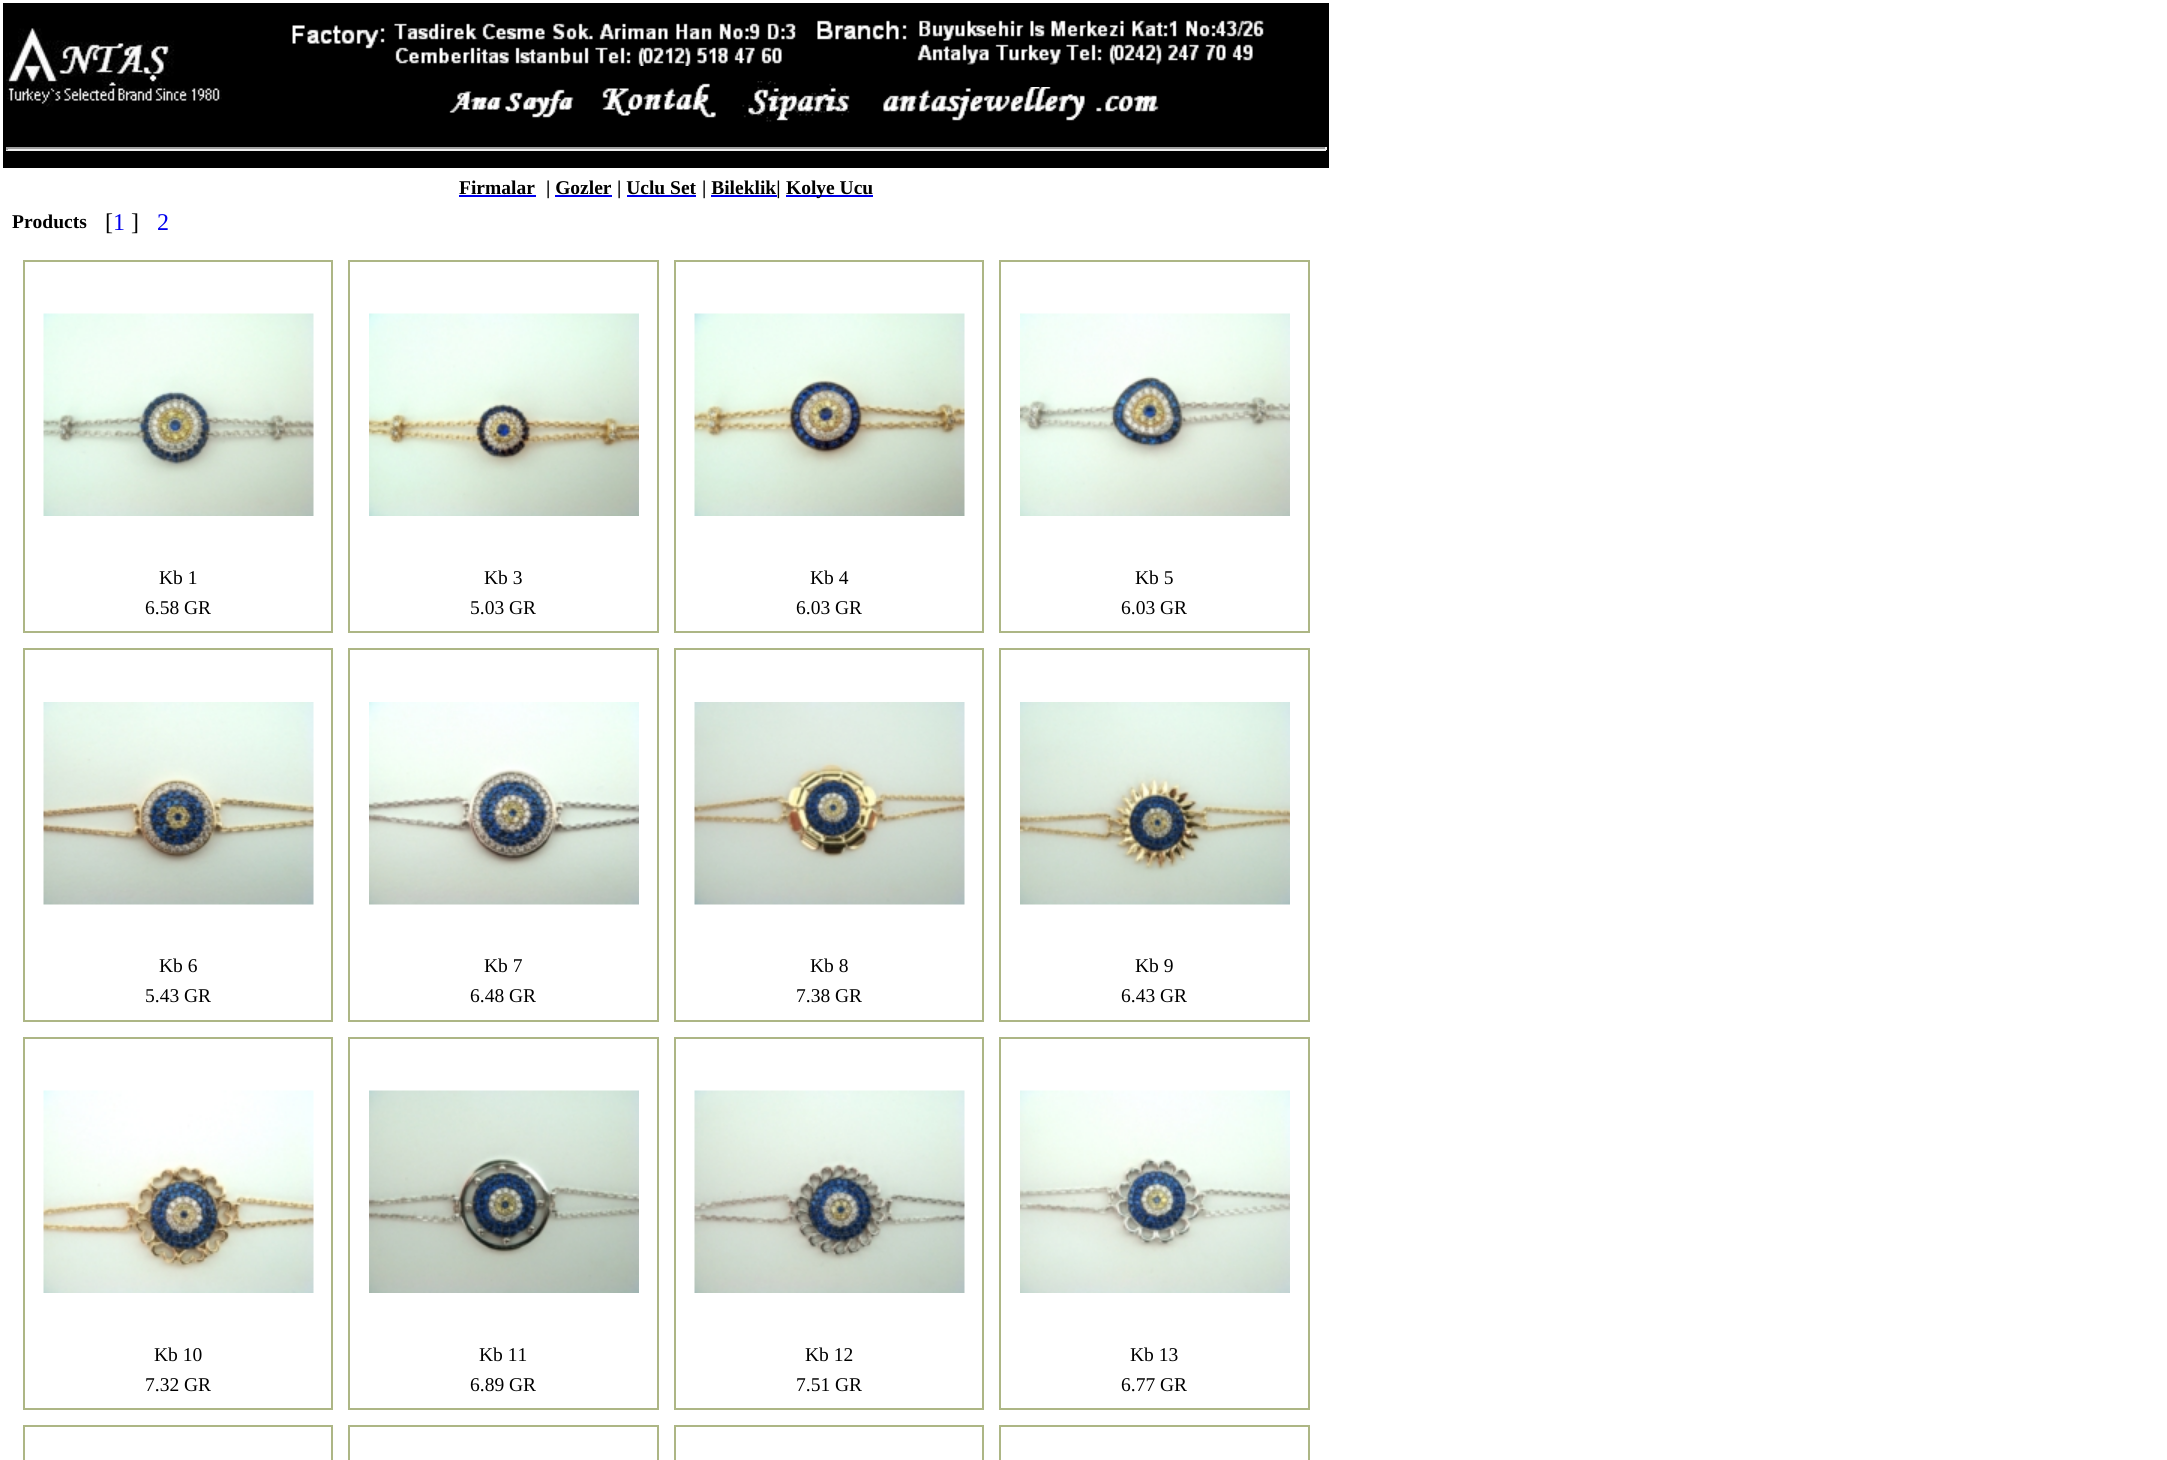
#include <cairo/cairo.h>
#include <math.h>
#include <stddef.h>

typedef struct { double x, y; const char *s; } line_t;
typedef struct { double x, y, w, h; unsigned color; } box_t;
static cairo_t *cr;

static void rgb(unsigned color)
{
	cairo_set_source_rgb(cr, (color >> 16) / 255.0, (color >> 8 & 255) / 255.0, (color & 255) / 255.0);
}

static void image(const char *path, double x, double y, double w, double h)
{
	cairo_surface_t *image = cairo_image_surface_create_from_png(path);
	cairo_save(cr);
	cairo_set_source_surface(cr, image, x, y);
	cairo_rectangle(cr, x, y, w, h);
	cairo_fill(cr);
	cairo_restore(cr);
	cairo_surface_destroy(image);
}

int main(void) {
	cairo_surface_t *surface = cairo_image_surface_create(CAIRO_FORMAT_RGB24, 2167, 1460);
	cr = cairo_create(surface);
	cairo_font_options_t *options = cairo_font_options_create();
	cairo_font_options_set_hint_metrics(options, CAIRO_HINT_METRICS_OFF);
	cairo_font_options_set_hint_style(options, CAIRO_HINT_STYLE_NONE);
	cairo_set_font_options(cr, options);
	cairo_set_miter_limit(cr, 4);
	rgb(0xffffff);
	cairo_paint(cr);
	rgb(0x000000);
	cairo_rectangle(cr, 3, 3, 1326, 165);
	cairo_fill(cr);
	image("img/1.png", 6, 28, 216, 79);
	image("img/2.png", 292, 23, 504, 43);
	image("img/3.png", 817, 20, 447, 45);
	image("img/4.png", 449, 89, 125, 29);
	image("img/5.png", 602, 83, 114, 35);
	image("img/6.png", 742, 81, 108, 41);
	image("img/7.png", 883, 87, 276, 34);
	{
		static const box_t items[] = {
			{6, 147, 1320, 2, 0x9f9f9f},
			{1325, 147, 2, 3, 0xeeeeee},
			{6, 149, 1320, 2, 0xeeeeee},
			{6, 147, 2, 3, 0x9f9f9f},
			{459, 195, 77, 2, 0x0000ee},
			{786, 195, 87, 2, 0x0000ee},
		};
		for (size_t i = 0; i < sizeof items / sizeof *items; i++) {
			rgb(items[i].color);
			cairo_rectangle(cr, items[i].x, items[i].y, items[i].w, items[i].h);
			cairo_fill(cr);
		}
	}
	cairo_rectangle(cr, 24, 261, 308, 371);
	rgb(0xadb685);
	cairo_stroke(cr);
	image("img/8.png", 43, 313, 271, 203);
	cairo_rectangle(cr, 349, 261, 309, 371);
	cairo_stroke(cr);
	image("img/9.png", 369, 313, 270, 203);
	cairo_rectangle(cr, 675, 261, 308, 371);
	cairo_stroke(cr);
	image("img/10.png", 694, 313, 271, 203);
	cairo_rectangle(cr, 1000, 261, 309, 371);
	cairo_stroke(cr);
	image("img/11.png", 1020, 313, 270, 203);
	cairo_rectangle(cr, 24, 649, 308, 372);
	cairo_stroke(cr);
	image("img/12.png", 43, 702, 271, 203);
	cairo_rectangle(cr, 349, 649, 309, 372);
	cairo_stroke(cr);
	image("img/13.png", 369, 702, 270, 203);
	cairo_rectangle(cr, 675, 649, 308, 372);
	cairo_stroke(cr);
	image("img/14.png", 694, 702, 271, 203);
	cairo_rectangle(cr, 1000, 649, 309, 372);
	cairo_stroke(cr);
	image("img/15.png", 1020, 702, 270, 203);
	cairo_rectangle(cr, 24, 1038, 308, 371);
	cairo_stroke(cr);
	image("img/16.png", 43, 1090, 271, 203);
	cairo_rectangle(cr, 349, 1038, 309, 371);
	cairo_stroke(cr);
	image("img/17.png", 369, 1090, 270, 203);
	cairo_rectangle(cr, 675, 1038, 308, 371);
	cairo_stroke(cr);
	image("img/18.png", 694, 1090, 271, 203);
	cairo_rectangle(cr, 1000, 1038, 309, 371);
	cairo_stroke(cr);
	image("img/19.png", 1020, 1090, 270, 203);
	cairo_rectangle(cr, 24, 1426, 308, 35);
	cairo_stroke(cr);
	cairo_rectangle(cr, 349, 1426, 309, 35);
	cairo_stroke(cr);
	cairo_rectangle(cr, 675, 1426, 308, 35);
	cairo_stroke(cr);
	cairo_rectangle(cr, 1000, 1426, 309, 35);
	cairo_stroke(cr);
	cairo_select_font_face(cr, "Liberation Serif", CAIRO_FONT_SLANT_NORMAL, CAIRO_FONT_WEIGHT_BOLD);
	cairo_set_font_size(cr, 19.5);
	rgb(0x000000);
	cairo_move_to(cr, 459, 194);
	cairo_show_text(cr, "Firmalar");
	cairo_move_to(cr, 546, 194);
	cairo_show_text(cr, "| Gozler");
	rgb(0x0000ee);
	cairo_rectangle(cr, 555, 195, 57, 2);
	cairo_fill(cr);
	rgb(0x000000);
	cairo_move_to(cr, 617, 194);
	cairo_show_text(cr, "| Uclu Set");
	rgb(0x0000ee);
	cairo_rectangle(cr, 627, 195, 69, 2);
	cairo_fill(cr);
	rgb(0x000000);
	cairo_move_to(cr, 702, 194);
	cairo_show_text(cr, "| Bileklik|");
	rgb(0x0000ee);
	cairo_rectangle(cr, 711, 195, 66, 2);
	cairo_fill(cr);
	rgb(0x000000);
	cairo_move_to(cr, 786, 194);
	cairo_show_text(cr, "Kolye Ucu");
	cairo_move_to(cr, 12, 228);
	cairo_show_text(cr, "Products");
	cairo_select_font_face(cr, "Liberation Serif", CAIRO_FONT_SLANT_NORMAL, CAIRO_FONT_WEIGHT_NORMAL);
	cairo_set_font_size(cr, 24);
	cairo_move_to(cr, 105, 230);
	cairo_show_text(cr, "[");
	rgb(0x0000ee);
	cairo_move_to(cr, 113, 230);
	cairo_show_text(cr, "1");
	rgb(0x000000);
	cairo_move_to(cr, 131, 230);
	cairo_show_text(cr, "]");
	rgb(0x0000ee);
	cairo_move_to(cr, 157, 230);
	cairo_show_text(cr, "2");
	cairo_set_font_size(cr, 19.5);
	rgb(0x000000);
	{
		static const line_t items[] = {
			{159, 584, "Kb 1"},
			{145, 614, "6.58 GR"},
			{484, 584, "Kb 3"},
			{470, 614, "5.03 GR"},
			{810, 584, "Kb 4"},
			{796, 614, "6.03 GR"},
			{1135, 584, "Kb 5"},
			{1121, 614, "6.03 GR"},
			{159, 972, "Kb 6"},
			{145, 1002, "5.43 GR"},
			{484, 972, "Kb 7"},
			{470, 1002, "6.48 GR"},
			{810, 972, "Kb 8"},
			{796, 1002, "7.38 GR"},
			{1135, 972, "Kb 9"},
			{1121, 1002, "6.43 GR"},
			{154, 1361, "Kb 10"},
			{145, 1391, "7.32 GR"},
			{479, 1361, "Kb 11"},
			{470, 1391, "6.89 GR"},
			{805, 1361, "Kb 12"},
			{796, 1391, "7.51 GR"},
			{1130, 1361, "Kb 13"},
			{1121, 1391, "6.77 GR"},
		};
		for (size_t i = 0; i < sizeof items / sizeof *items; i++) {
			cairo_move_to(cr, items[i].x, items[i].y);
			cairo_show_text(cr, items[i].s);
		}
	}
	cairo_surface_write_to_png(surface, "page.png");
	cairo_font_options_destroy(options);
	cairo_destroy(cr);
	cairo_surface_destroy(surface);
	return 0;
}
